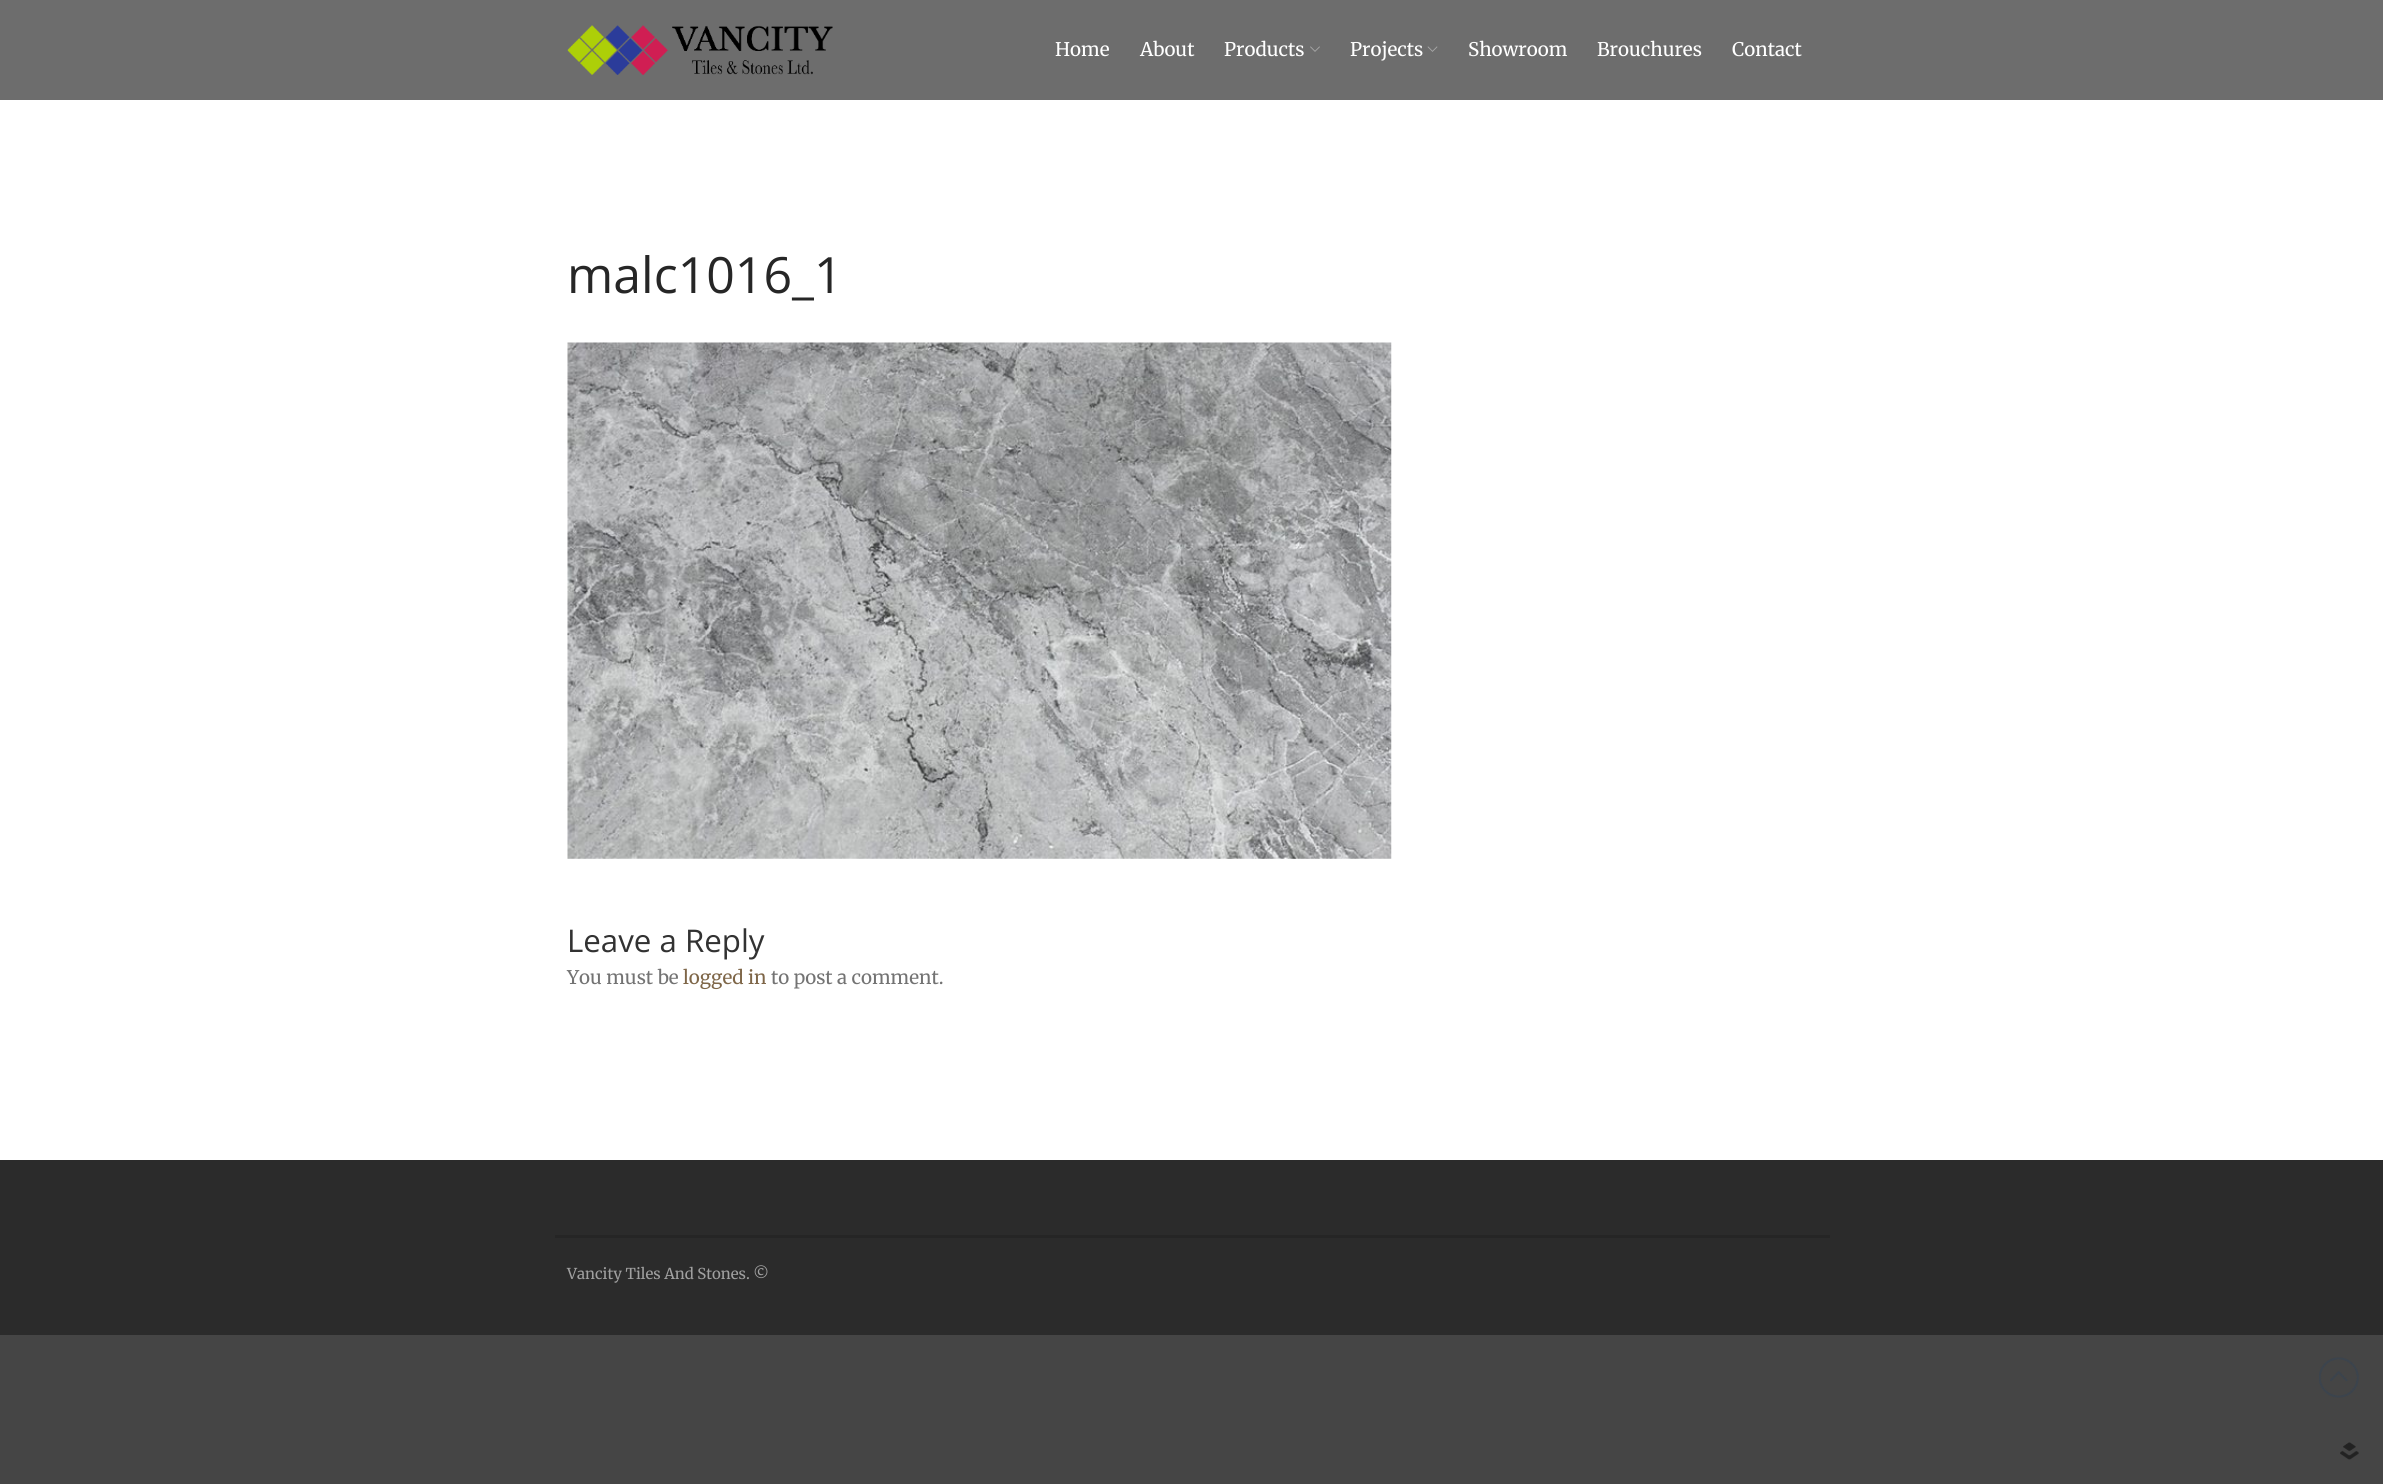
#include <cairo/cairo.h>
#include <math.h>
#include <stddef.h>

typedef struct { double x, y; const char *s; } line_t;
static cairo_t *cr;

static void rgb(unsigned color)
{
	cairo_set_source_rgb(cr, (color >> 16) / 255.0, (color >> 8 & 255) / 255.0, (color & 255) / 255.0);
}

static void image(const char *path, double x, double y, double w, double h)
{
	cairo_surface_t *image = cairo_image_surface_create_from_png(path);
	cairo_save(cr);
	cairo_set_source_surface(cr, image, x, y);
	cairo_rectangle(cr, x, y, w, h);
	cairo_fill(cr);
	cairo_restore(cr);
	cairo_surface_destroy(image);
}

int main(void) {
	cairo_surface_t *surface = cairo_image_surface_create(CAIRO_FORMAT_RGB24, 2383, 1484);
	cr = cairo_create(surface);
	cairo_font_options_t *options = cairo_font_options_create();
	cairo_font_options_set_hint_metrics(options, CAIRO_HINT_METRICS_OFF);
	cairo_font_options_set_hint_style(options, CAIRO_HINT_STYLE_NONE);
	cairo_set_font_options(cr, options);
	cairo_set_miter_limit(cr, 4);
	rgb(0x454545);
	cairo_paint(cr);
	rgb(0xffffff);
	cairo_rectangle(cr, 0, 100, 2383, 1060);
	cairo_fill(cr);
	rgb(0x6d6d6d);
	cairo_rectangle(cr, 0, 0, 2383, 100);
	cairo_fill(cr);
	image("img/1.png", 567, 25, 266, 50);
	image("img/2.png", 1310, 46, 10, 6);
	image("img/3.png", 1427, 46, 11, 6);
	image("img/4.png", 567, 342, 825, 517);
	image("img/5.png", 2319, 1357, 40, 41);
	rgb(0x2b2b2b);
	cairo_rectangle(cr, 0, 1160, 2383, 175);
	cairo_fill(cr);
	rgb(0x252525);
	cairo_rectangle(cr, 555, 1235, 1275, 3);
	cairo_fill(cr);
	image("img/6.png", 2340, 1442, 19, 18);
	cairo_select_font_face(cr, "Merriweather", CAIRO_FONT_SLANT_NORMAL, CAIRO_FONT_WEIGHT_NORMAL);
	cairo_set_font_size(cr, 18.75);
	rgb(0xffffff);
	{
		static const line_t items[] = {
			{1055, 56, "Home"},
			{1140, 56, "About"},
			{1224, 56, "Products"},
			{1350, 56, "Projects"},
			{1468, 56, "Showroom"},
			{1597, 56, "Brouchures"},
			{1732, 56, "Contact"},
		};
		for (size_t i = 0; i < sizeof items / sizeof *items; i++) {
			cairo_move_to(cr, items[i].x, items[i].y);
			cairo_show_text(cr, items[i].s);
		}
	}
	cairo_select_font_face(cr, "Open Sans", CAIRO_FONT_SLANT_NORMAL, CAIRO_FONT_WEIGHT_NORMAL);
	cairo_set_font_size(cr, 50);
	rgb(0x262626);
	cairo_move_to(cr, 567, 293);
	cairo_show_text(cr, "malc1016_1");
	cairo_set_font_size(cr, 31.25);
	rgb(0x323232);
	cairo_move_to(cr, 567, 952);
	cairo_show_text(cr, "Leave a Reply");
	cairo_select_font_face(cr, "Merriweather", CAIRO_FONT_SLANT_NORMAL, CAIRO_FONT_WEIGHT_NORMAL);
	cairo_set_font_size(cr, 18.75);
	rgb(0x737373);
	cairo_move_to(cr, 567, 984);
	cairo_show_text(cr, "You must be");
	rgb(0x7e6648);
	cairo_move_to(cr, 683, 984);
	cairo_show_text(cr, "logged in");
	rgb(0x737373);
	cairo_move_to(cr, 771, 984);
	cairo_show_text(cr, "to post a comment.");
	cairo_set_font_size(cr, 15);
	rgb(0xa0a0a0);
	cairo_move_to(cr, 567, 1279);
	cairo_show_text(cr, "Vancity Tiles And Stones. ©");
	cairo_surface_write_to_png(surface, "page.png");
	cairo_font_options_destroy(options);
	cairo_destroy(cr);
	cairo_surface_destroy(surface);
	return 0;
}
